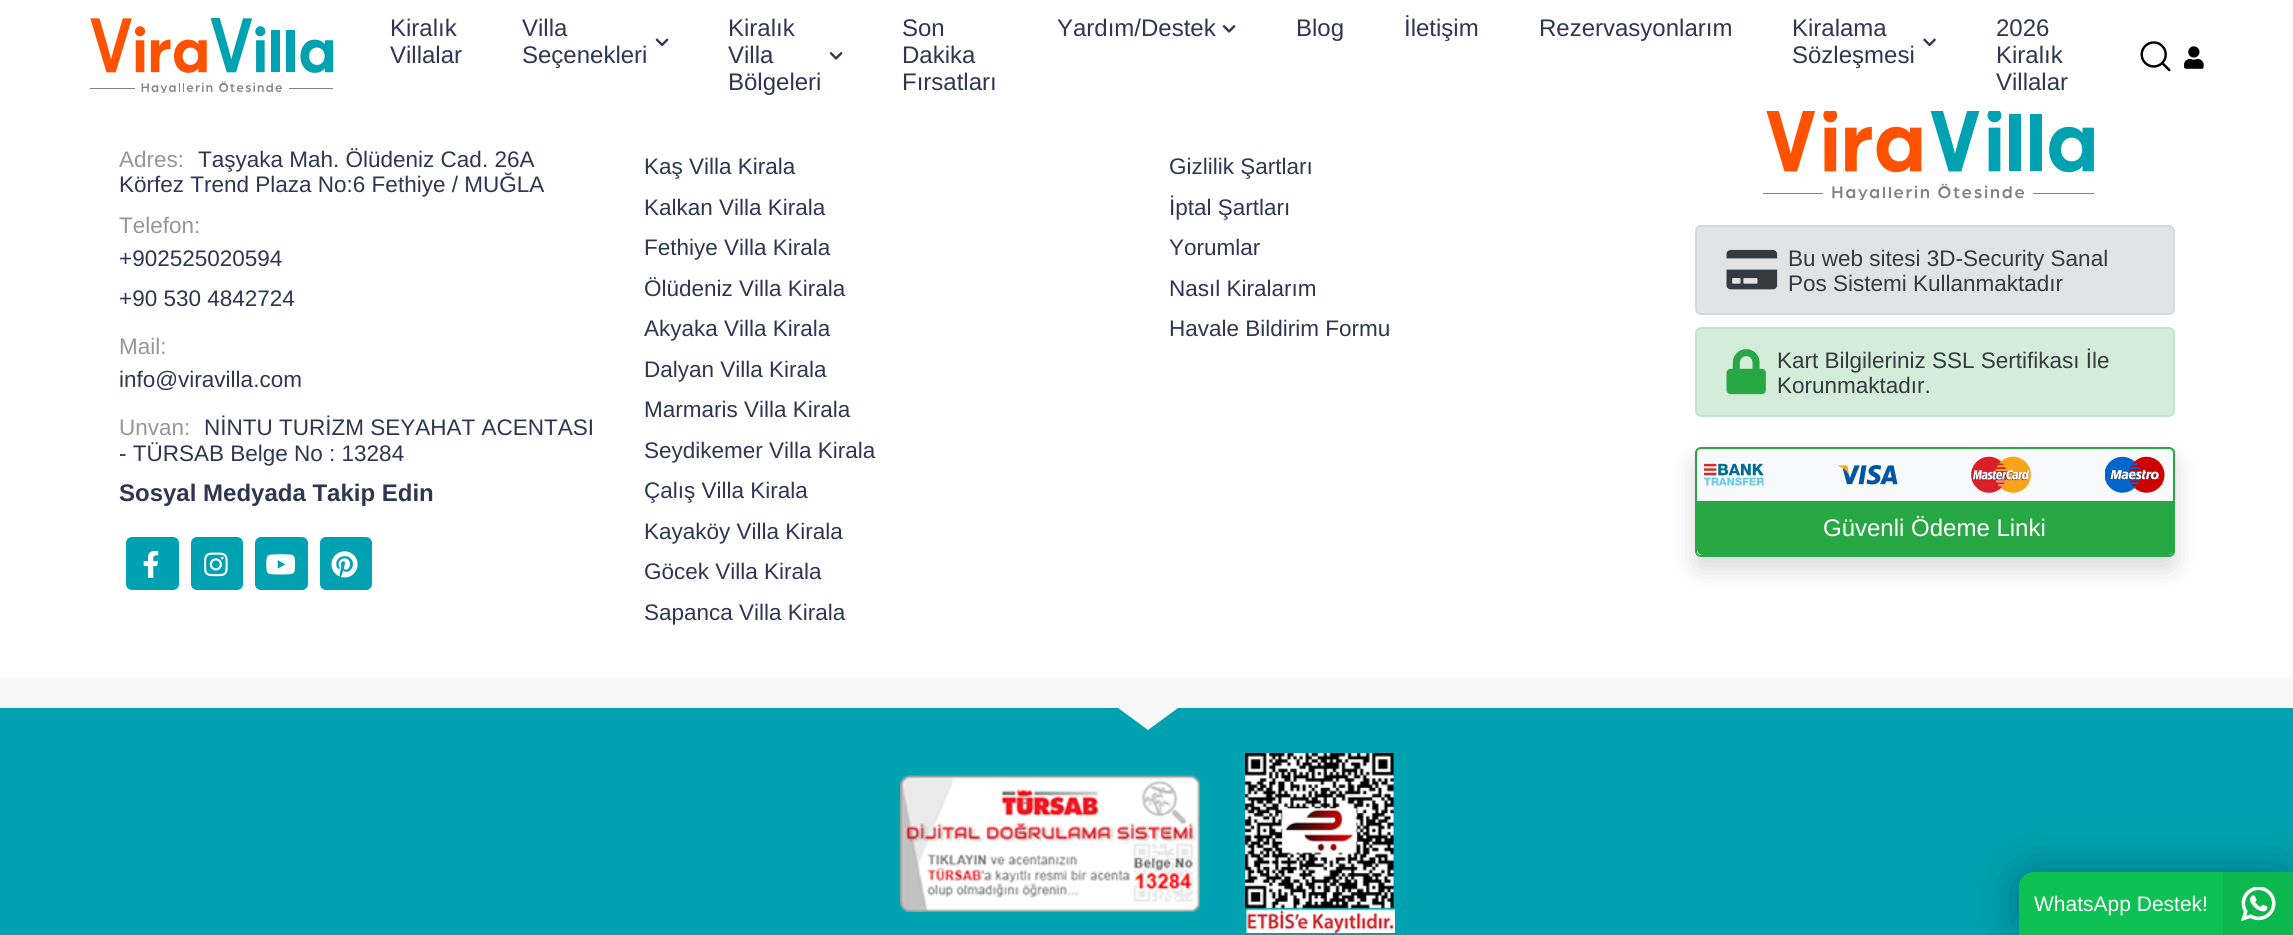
#include <cairo/cairo.h>
#include <math.h>
#include <stddef.h>

typedef struct { double x, y; const char *s; } line_t;
static cairo_t *cr;

static void rgb(unsigned color)
{
	cairo_set_source_rgb(cr, (color >> 16) / 255.0, (color >> 8 & 255) / 255.0, (color & 255) / 255.0);
}

static void rrect(double x, double y, double w, double h, double r)
{
	cairo_new_sub_path(cr);
	cairo_arc(cr, x + w - r, y + h - r, r, 0, M_PI / 2);
	cairo_arc(cr, x + r, y + h - r, r, M_PI / 2, M_PI);
	cairo_arc(cr, x + r, y + r, r, M_PI, 1.5 * M_PI);
	cairo_arc(cr, x + w - r, y + r, r, 1.5 * M_PI, 2 * M_PI);
	cairo_close_path(cr);
}

static void soft_shadow(double x, double y, double w, double h, double r, double blur, double alpha)
{
	cairo_push_group_with_content(cr, CAIRO_CONTENT_ALPHA);
	cairo_set_operator(cr, CAIRO_OPERATOR_SOURCE);
	for (int i = 15; i >= -15 && fmin(w, h) + blur * i / 3 > 0; i -= 2) {
		double e = blur * i / 6;
		cairo_set_source_rgba(cr, 0, 0, 0, alpha * erfc((i - 1) / 8.5) / 2);
		rrect(x - e, y - e, w + 2 * e, h + 2 * e, fmax(0, fmin(r + e + blur * .6, fmin(w, h) / 2 + e)));
		cairo_fill(cr);
	}
	cairo_pattern_t *soft = cairo_pop_group(cr);
	cairo_mask(cr, soft);
	cairo_pattern_destroy(soft);
}

static void image(const char *path, double x, double y, double w, double h)
{
	cairo_surface_t *image = cairo_image_surface_create_from_png(path);
	cairo_save(cr);
	cairo_set_source_surface(cr, image, x, y);
	cairo_rectangle(cr, x, y, w, h);
	cairo_fill(cr);
	cairo_restore(cr);
	cairo_surface_destroy(image);
}

int main(void) {
	cairo_surface_t *surface = cairo_image_surface_create(CAIRO_FORMAT_RGB24, 2293, 935);
	cr = cairo_create(surface);
	cairo_font_options_t *options = cairo_font_options_create();
	cairo_font_options_set_hint_metrics(options, CAIRO_HINT_METRICS_OFF);
	cairo_font_options_set_hint_style(options, CAIRO_HINT_STYLE_NONE);
	cairo_set_font_options(cr, options);
	cairo_set_miter_limit(cr, 4);
	rgb(0xffffff);
	cairo_paint(cr);
	image("img/1.png", 90, 18, 244, 75);
	image("img/2.png", 655, 38, 14, 9);
	image("img/3.png", 829, 52, 14, 8);
	image("img/3.png", 1222, 25, 14, 8);
	image("img/4.png", 1923, 38, 13, 9);
	image("img/5.png", 2140, 41, 31, 31);
	image("img/6.png", 2184, 46, 20, 23);
	rgb(0x00a1b0);
	rrect(126, 537, 53, 53, 6);
	cairo_fill(cr);
	image("img/7.png", 143, 550, 16, 28);
	rrect(191, 537, 52, 53, 6);
	cairo_fill(cr);
	image("img/8.png", 204, 552, 24, 25);
	rrect(255, 537, 53, 53, 6);
	cairo_fill(cr);
	image("img/9.png", 266, 554, 30, 21);
	rrect(320, 537, 52, 53, 6);
	cairo_fill(cr);
	image("img/10.png", 331, 551, 27, 27);
	image("img/11.png", 1763, 111, 331, 89);
	rgb(0xe2e3e5);
	rrect(1696, 226, 478, 88, 5);
	cairo_fill_preserve(cr);
	rgb(0xd6d8db);
	cairo_stroke(cr);
	image("img/12.png", 1726, 249, 52, 41);
	rgb(0xd4edda);
	rrect(1696, 328, 478, 88, 5);
	cairo_fill_preserve(cr);
	rgb(0xc3e6cb);
	cairo_stroke(cr);
	image("img/13.png", 1726, 349, 40, 46);
	rgb(0x000000);
	soft_shadow(1695, 459, 480, 110, 6, 12, 0.15);
	rgb(0xf8f9fa);
	rrect(1696, 448, 478, 108, 5);
	cairo_fill_preserve(cr);
	rgb(0x28a745);
	cairo_stroke(cr);
	image("img/14.png", 1704, 463, 60, 23);
	image("img/15.png", 1838, 465, 60, 20);
	image("img/16.png", 1971, 456, 60, 37);
	image("img/17.png", 2105, 456, 60, 37);
	cairo_new_path(cr);
	cairo_move_to(cr, 1698, 502);
	cairo_line_to(cr, 2173, 502);
	cairo_line_to(cr, 2173, 549);
	cairo_curve_to(cr, 2173, 552, 2171, 554, 2168, 554);
	cairo_line_to(cr, 1703, 554);
	cairo_curve_to(cr, 1700, 554, 1698, 552, 1698, 549);
	cairo_close_path(cr);
	cairo_fill_preserve(cr);
	cairo_stroke(cr);
	rgb(0xf8f8f8);
	cairo_rectangle(cr, 0, 678, 2293, 30);
	cairo_fill(cr);
	rgb(0x00a1b0);
	cairo_rectangle(cr, 0, 708, 2293, 227);
	cairo_fill(cr);
	rgb(0xf8f8f8);
	cairo_new_path(cr);
	cairo_move_to(cr, 1118, 708);
	cairo_line_to(cr, 1178, 708);
	cairo_line_to(cr, 1148, 730);
	cairo_close_path(cr);
	cairo_fill(cr);
	image("img/18.png", 900, 775, 300, 137);
	image("img/19.png", 1245, 753, 150, 180);
	rgb(0x000000);
	soft_shadow(2019, 872, 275, 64, 15, 22.5, 0.3);
	rgb(0x0dc152);
	cairo_new_path(cr);
	cairo_move_to(cr, 2034, 872);
	cairo_line_to(cr, 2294, 872);
	cairo_line_to(cr, 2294, 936);
	cairo_line_to(cr, 2019, 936);
	cairo_line_to(cr, 2019, 887);
	cairo_curve_to(cr, 2019, 878.5, 2025.5, 872, 2034, 872);
	cairo_close_path(cr);
	cairo_fill(cr);
	rgb(0x0cb74e);
	cairo_rectangle(cr, 2223, 872, 70, 63);
	cairo_fill(cr);
	image("img/20.png", 2241, 887, 35, 34);
	cairo_select_font_face(cr, "Liberation Sans", CAIRO_FONT_SLANT_NORMAL, CAIRO_FONT_WEIGHT_NORMAL);
	cairo_set_font_size(cr, 24);
	rgb(0x2e3652);
	{
		static const line_t items[] = {
			{390, 36, "Kiralık"},
			{390, 63, "Villalar"},
			{522, 36, "Villa"},
			{522, 63, "Seçenekleri"},
			{728, 36, "Kiralık"},
			{728, 63, "Villa"},
			{728, 90, "Bölgeleri"},
			{902, 36, "Son"},
			{902, 63, "Dakika"},
			{902, 90, "Fırsatları"},
			{1057, 36, "Yardım/Destek"},
			{1296, 36, "Blog"},
			{1404, 36, "İletişim"},
			{1539, 36, "Rezervasyonlarım"},
			{1792, 36, "Kiralama"},
			{1792, 63, "Sözleşmesi"},
			{1996, 36, "2026"},
			{1996, 63, "Kiralık"},
			{1996, 90, "Villalar"},
		};
		for (size_t i = 0; i < sizeof items / sizeof *items; i++) {
			cairo_move_to(cr, items[i].x, items[i].y);
			cairo_show_text(cr, items[i].s);
		}
	}
	cairo_set_font_size(cr, 22.5);
	rgb(0x969696);
	cairo_move_to(cr, 119, 167);
	cairo_show_text(cr, "Adres:");
	rgb(0x2e3652);
	cairo_move_to(cr, 198, 167);
	cairo_show_text(cr, "Taşyaka Mah. Ölüdeniz Cad. 26A");
	cairo_move_to(cr, 119, 192);
	cairo_show_text(cr, "Körfez Trend Plaza No:6 Fethiye / MUĞLA");
	rgb(0x969696);
	cairo_move_to(cr, 119, 233);
	cairo_show_text(cr, "Telefon:");
	rgb(0x2e3652);
	cairo_move_to(cr, 119, 266);
	cairo_show_text(cr, "+902525020594");
	cairo_move_to(cr, 119, 306);
	cairo_show_text(cr, "+90 530 4842724");
	rgb(0x969696);
	cairo_move_to(cr, 119, 354);
	cairo_show_text(cr, "Mail:");
	rgb(0x2e3652);
	cairo_move_to(cr, 119, 387);
	cairo_show_text(cr, "info@viravilla.com");
	rgb(0x969696);
	cairo_move_to(cr, 119, 435);
	cairo_show_text(cr, "Unvan:");
	rgb(0x2e3652);
	cairo_move_to(cr, 204, 435);
	cairo_show_text(cr, "NİNTU TURİZM SEYAHAT ACENTASI");
	cairo_move_to(cr, 119, 461);
	cairo_show_text(cr, "- TÜRSAB Belge No : 13284");
	cairo_select_font_face(cr, "Liberation Sans", CAIRO_FONT_SLANT_NORMAL, CAIRO_FONT_WEIGHT_BOLD);
	cairo_set_font_size(cr, 24);
	cairo_move_to(cr, 119, 501);
	cairo_show_text(cr, "Sosyal Medyada Takip Edin");
	cairo_select_font_face(cr, "Liberation Sans", CAIRO_FONT_SLANT_NORMAL, CAIRO_FONT_WEIGHT_NORMAL);
	cairo_set_font_size(cr, 22.5);
	{
		static const line_t items[] = {
			{644, 174, "Kaş Villa Kirala"},
			{644, 215, "Kalkan Villa Kirala"},
			{644, 255, "Fethiye Villa Kirala"},
			{644, 296, "Ölüdeniz Villa Kirala"},
			{644, 336, "Akyaka Villa Kirala"},
			{644, 377, "Dalyan Villa Kirala"},
			{644, 417, "Marmaris Villa Kirala"},
			{644, 458, "Seydikemer Villa Kirala"},
			{644, 498, "Çalış Villa Kirala"},
			{644, 539, "Kayaköy Villa Kirala"},
			{644, 579, "Göcek Villa Kirala"},
			{644, 620, "Sapanca Villa Kirala"},
			{1169, 174, "Gizlilik Şartları"},
			{1169, 215, "İptal Şartları"},
			{1169, 255, "Yorumlar"},
			{1169, 296, "Nasıl Kiralarım"},
			{1169, 336, "Havale Bildirim Formu"},
		};
		for (size_t i = 0; i < sizeof items / sizeof *items; i++) {
			cairo_move_to(cr, items[i].x, items[i].y);
			cairo_show_text(cr, items[i].s);
		}
	}
	rgb(0x343a40);
	{
		static const line_t items[] = {
			{1788, 266, "Bu web sitesi 3D-Security Sanal"},
			{1788, 291, "Pos Sistemi Kullanmaktadır"},
			{1777, 368, "Kart Bilgileriniz SSL Sertifikası İle"},
			{1777, 393, "Korunmaktadır."},
		};
		for (size_t i = 0; i < sizeof items / sizeof *items; i++) {
			cairo_move_to(cr, items[i].x, items[i].y);
			cairo_show_text(cr, items[i].s);
		}
	}
	cairo_set_font_size(cr, 24);
	rgb(0xffffff);
	cairo_move_to(cr, 1823, 536);
	cairo_show_text(cr, "Güvenli Ödeme Linki");
	cairo_set_font_size(cr, 21);
	cairo_move_to(cr, 2034, 911);
	cairo_show_text(cr, "WhatsApp Destek!");
	cairo_surface_write_to_png(surface, "page.png");
	cairo_font_options_destroy(options);
	cairo_destroy(cr);
	cairo_surface_destroy(surface);
	return 0;
}
